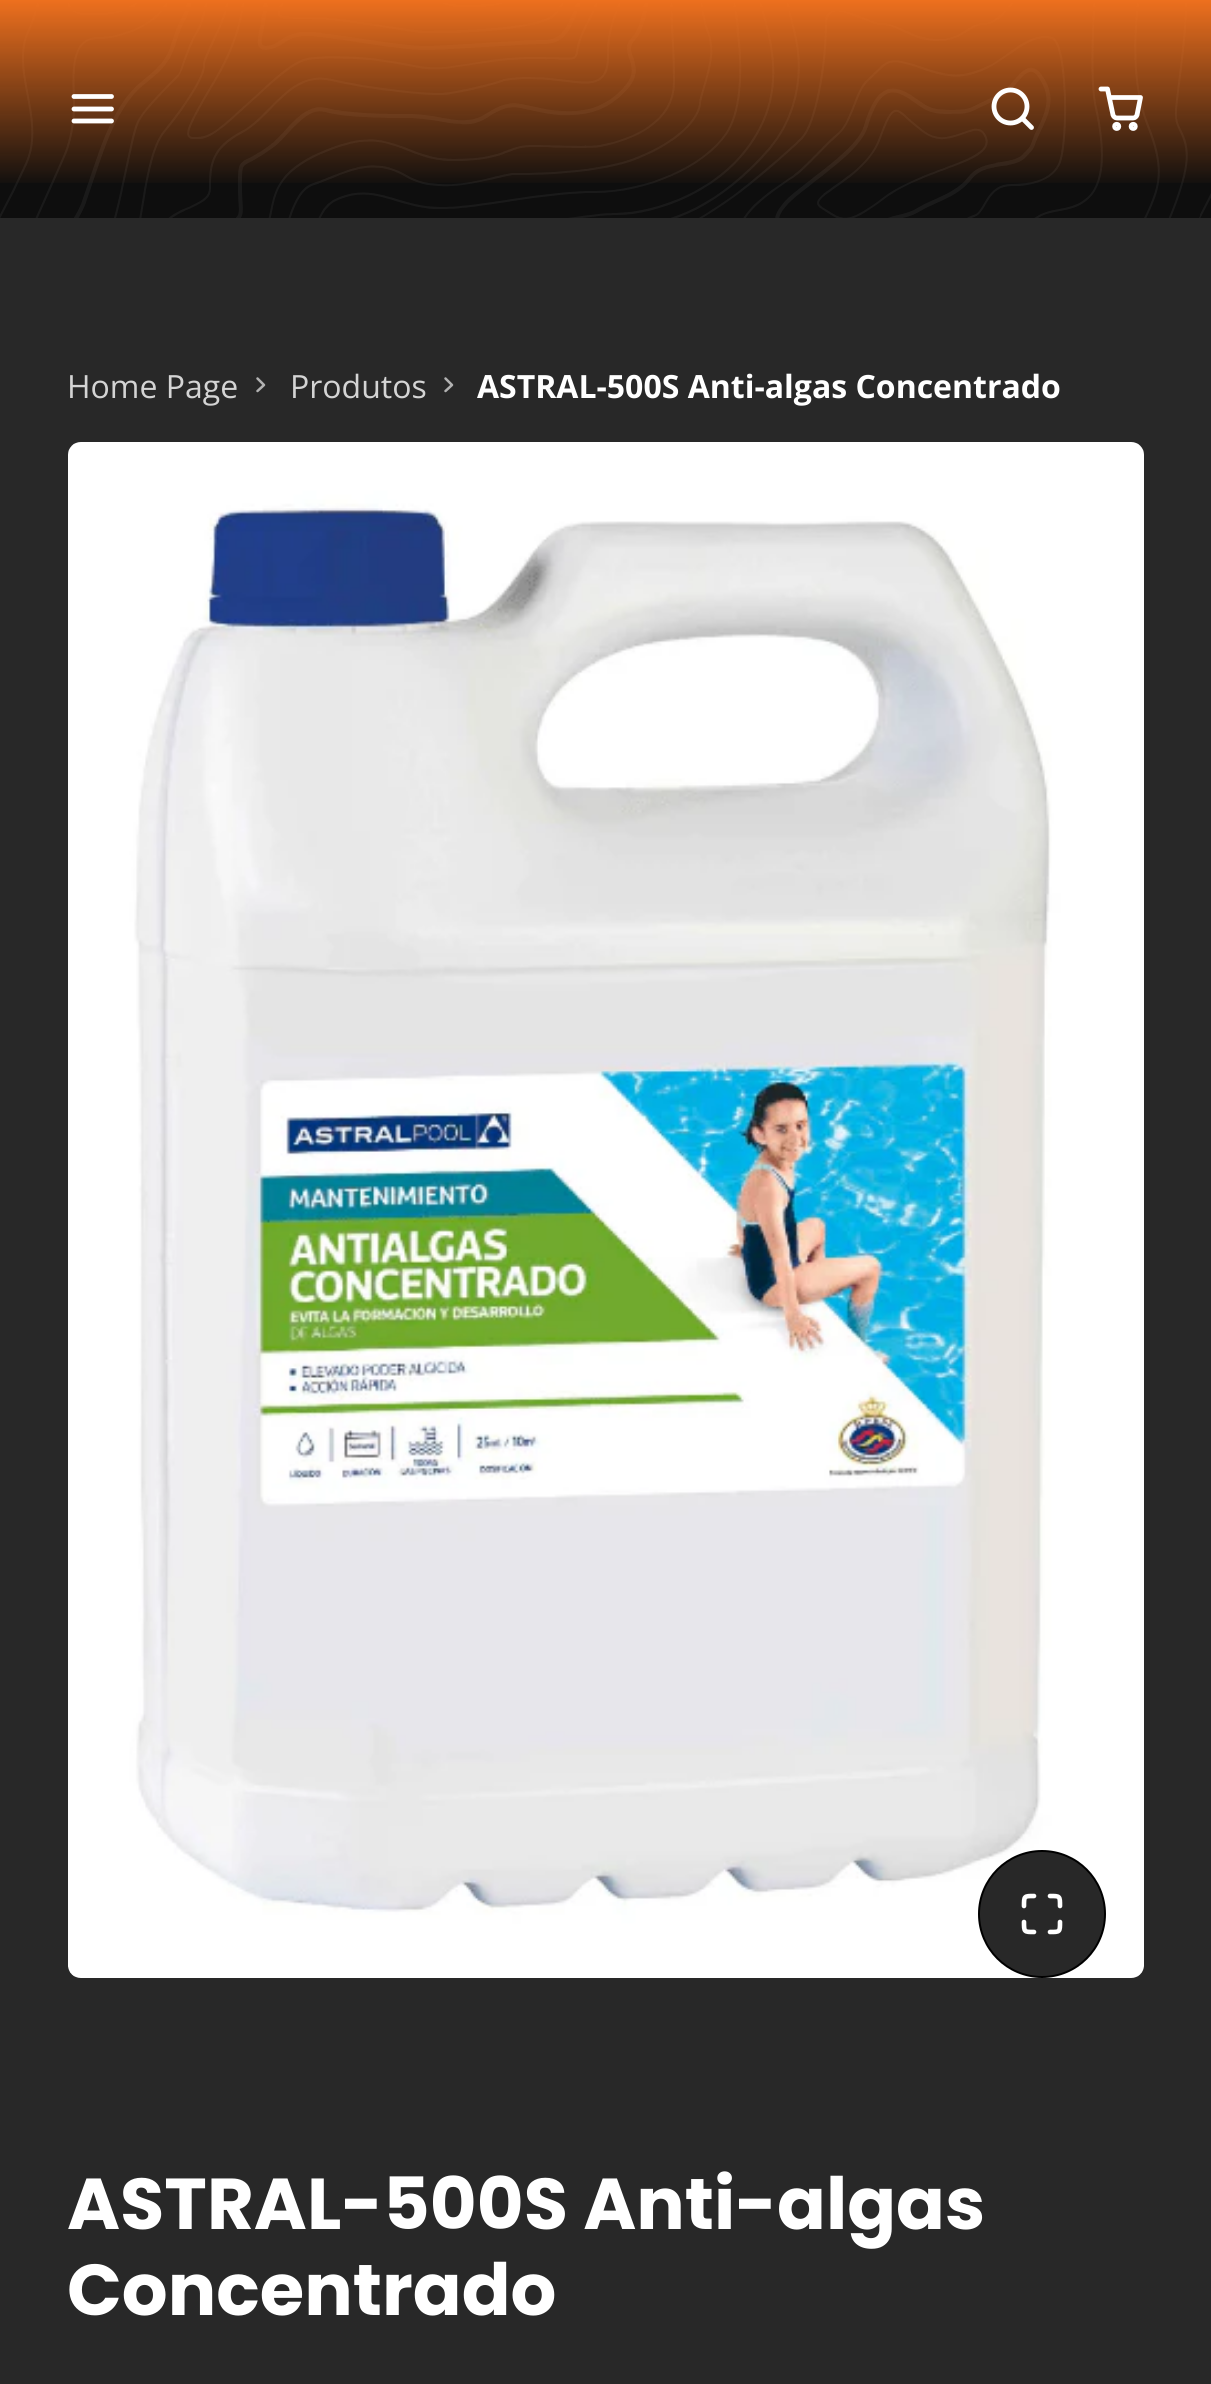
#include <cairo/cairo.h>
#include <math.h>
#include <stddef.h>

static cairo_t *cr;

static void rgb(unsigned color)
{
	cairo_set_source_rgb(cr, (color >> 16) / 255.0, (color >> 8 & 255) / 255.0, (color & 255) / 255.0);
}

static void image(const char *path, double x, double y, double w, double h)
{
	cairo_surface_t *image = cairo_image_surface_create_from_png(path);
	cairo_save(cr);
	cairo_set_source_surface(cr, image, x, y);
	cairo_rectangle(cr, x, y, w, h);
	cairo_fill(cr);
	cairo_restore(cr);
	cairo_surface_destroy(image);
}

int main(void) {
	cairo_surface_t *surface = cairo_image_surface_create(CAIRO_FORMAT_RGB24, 1211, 2384);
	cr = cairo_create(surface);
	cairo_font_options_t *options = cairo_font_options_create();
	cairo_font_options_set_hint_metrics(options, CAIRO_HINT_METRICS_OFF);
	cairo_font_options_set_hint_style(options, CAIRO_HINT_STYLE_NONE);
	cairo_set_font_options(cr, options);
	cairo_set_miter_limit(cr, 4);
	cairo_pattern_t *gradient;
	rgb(0x0e0e0e);
	cairo_paint(cr);
	image("img/1.png", 0, 1, 1211, 217);
	gradient = cairo_pattern_create_linear(606, 0, 606, 218);
	cairo_pattern_add_color_stop_rgba(gradient, 0, 0.933, 0.439, 0.118, 1);
	cairo_pattern_add_color_stop_rgba(gradient, 0.86, 0.933, 0.439, 0.118, 0);
	cairo_pattern_add_color_stop_rgba(gradient, 1, 1, 1, 1, 0);
	cairo_pattern_add_color_stop_rgba(gradient, 1, 1, 1, 1, 1);
	cairo_set_source(cr, gradient);
	cairo_pattern_destroy(gradient);
	cairo_rectangle(cr, 0, 0, 1211, 183);
	cairo_fill(cr);
	cairo_new_path(cr);
	cairo_move_to(cr, 74, 109);
	cairo_line_to(cr, 111.5, 109);
	cairo_move_to(cr, 74, 96.5);
	cairo_line_to(cr, 111.5, 96.5);
	cairo_move_to(cr, 74, 121);
	cairo_line_to(cr, 111.5, 121);
	rgb(0xffffff);
	cairo_set_line_width(cr, 4.8);
	cairo_set_line_cap(cr, CAIRO_LINE_CAP_ROUND);
	cairo_set_line_join(cr, CAIRO_LINE_JOIN_ROUND);
	cairo_stroke(cr);
	cairo_arc(cr, 1010.5, 106.5, 16.5, 0, 2 * M_PI);
	cairo_set_line_cap(cr, CAIRO_LINE_CAP_BUTT);
	cairo_set_line_join(cr, CAIRO_LINE_JOIN_MITER);
	cairo_stroke(cr);
	cairo_new_path(cr);
	cairo_move_to(cr, 1031.5, 127.5);
	cairo_line_to(cr, 1022.5, 118.5);
	cairo_set_line_cap(cr, CAIRO_LINE_CAP_ROUND);
	cairo_set_line_join(cr, CAIRO_LINE_JOIN_ROUND);
	cairo_stroke(cr);
	cairo_arc(cr, 1116.7, 126.4, 2.1, 0, 2 * M_PI);
	cairo_set_line_cap(cr, CAIRO_LINE_CAP_BUTT);
	cairo_set_line_join(cr, CAIRO_LINE_JOIN_MITER);
	cairo_stroke(cr);
	cairo_arc(cr, 1133.2, 126.4, 2.1, 0, 2 * M_PI);
	cairo_stroke(cr);
	cairo_new_path(cr);
	cairo_move_to(cr, 1101, 89);
	cairo_line_to(cr, 1107.5, 89);
	cairo_line_to(cr, 1113, 115);
	cairo_curve_to(cr, 1113.5, 116.5, 1115, 118, 1117, 118);
	cairo_line_to(cr, 1133, 118);
	cairo_curve_to(cr, 1135, 118, 1136.5, 116.5, 1137, 115);
	cairo_line_to(cr, 1140.5, 97.5);
	cairo_line_to(cr, 1110.5, 97.5);
	cairo_set_line_cap(cr, CAIRO_LINE_CAP_ROUND);
	cairo_set_line_join(cr, CAIRO_LINE_JOIN_ROUND);
	cairo_stroke(cr);
	rgb(0x282828);
	cairo_rectangle(cr, 0, 218, 1211, 2166);
	cairo_fill(cr);
	cairo_new_path(cr);
	cairo_move_to(cr, 257.5, 391);
	cairo_line_to(cr, 264, 385);
	cairo_line_to(cr, 257.5, 378.5);
	rgb(0xb2b2b2);
	cairo_set_line_width(cr, 2.5);
	cairo_stroke(cr);
	cairo_new_path(cr);
	cairo_move_to(cr, 445.5, 391);
	cairo_line_to(cr, 452, 385);
	cairo_line_to(cr, 445.5, 378.5);
	cairo_stroke(cr);
	image("img/2.png", 68, 442, 1076, 1536);
	rgb(0x282828);
	cairo_arc(cr, 1042, 1914, 63, 0, 2 * M_PI);
	cairo_fill_preserve(cr);
	rgb(0x000000);
	cairo_set_line_width(cr, 2);
	cairo_set_line_cap(cr, CAIRO_LINE_CAP_BUTT);
	cairo_set_line_join(cr, CAIRO_LINE_JOIN_MITER);
	cairo_stroke(cr);
	cairo_new_path(cr);
	cairo_move_to(cr, 1034, 1896);
	cairo_curve_to(cr, 1024, 1896, 1024, 1896, 1024, 1906);
	cairo_move_to(cr, 1060, 1906);
	cairo_curve_to(cr, 1060, 1896, 1060, 1896, 1050, 1896);
	cairo_move_to(cr, 1050, 1932);
	cairo_curve_to(cr, 1060, 1932, 1060, 1932, 1060, 1922);
	cairo_move_to(cr, 1024, 1922);
	cairo_curve_to(cr, 1024, 1932, 1024, 1932, 1034, 1932);
	rgb(0xffffff);
	cairo_set_line_width(cr, 4.6);
	cairo_set_line_cap(cr, CAIRO_LINE_CAP_ROUND);
	cairo_set_line_join(cr, CAIRO_LINE_JOIN_ROUND);
	cairo_stroke(cr);
	cairo_select_font_face(cr, "Open Sans", CAIRO_FONT_SLANT_NORMAL, CAIRO_FONT_WEIGHT_NORMAL);
	cairo_set_font_size(cr, 32);
	rgb(0xd4d4d4);
	cairo_move_to(cr, 67, 398);
	cairo_show_text(cr, "Home Page");
	cairo_move_to(cr, 290, 398);
	cairo_show_text(cr, "Produtos");
	cairo_select_font_face(cr, "Open Sans", CAIRO_FONT_SLANT_NORMAL, CAIRO_FONT_WEIGHT_BOLD);
	rgb(0xffffff);
	cairo_move_to(cr, 477, 398);
	cairo_show_text(cr, "ASTRAL-500S Anti-algas Concentrado");
	cairo_select_font_face(cr, "Poppins", CAIRO_FONT_SLANT_NORMAL, CAIRO_FONT_WEIGHT_BOLD);
	cairo_set_font_size(cr, 72);
	cairo_move_to(cr, 67, 2229);
	cairo_show_text(cr, "ASTRAL-500S Anti-algas");
	cairo_move_to(cr, 67, 2315);
	cairo_show_text(cr, "Concentrado");
	cairo_surface_write_to_png(surface, "page.png");
	cairo_font_options_destroy(options);
	cairo_destroy(cr);
	cairo_surface_destroy(surface);
	return 0;
}
